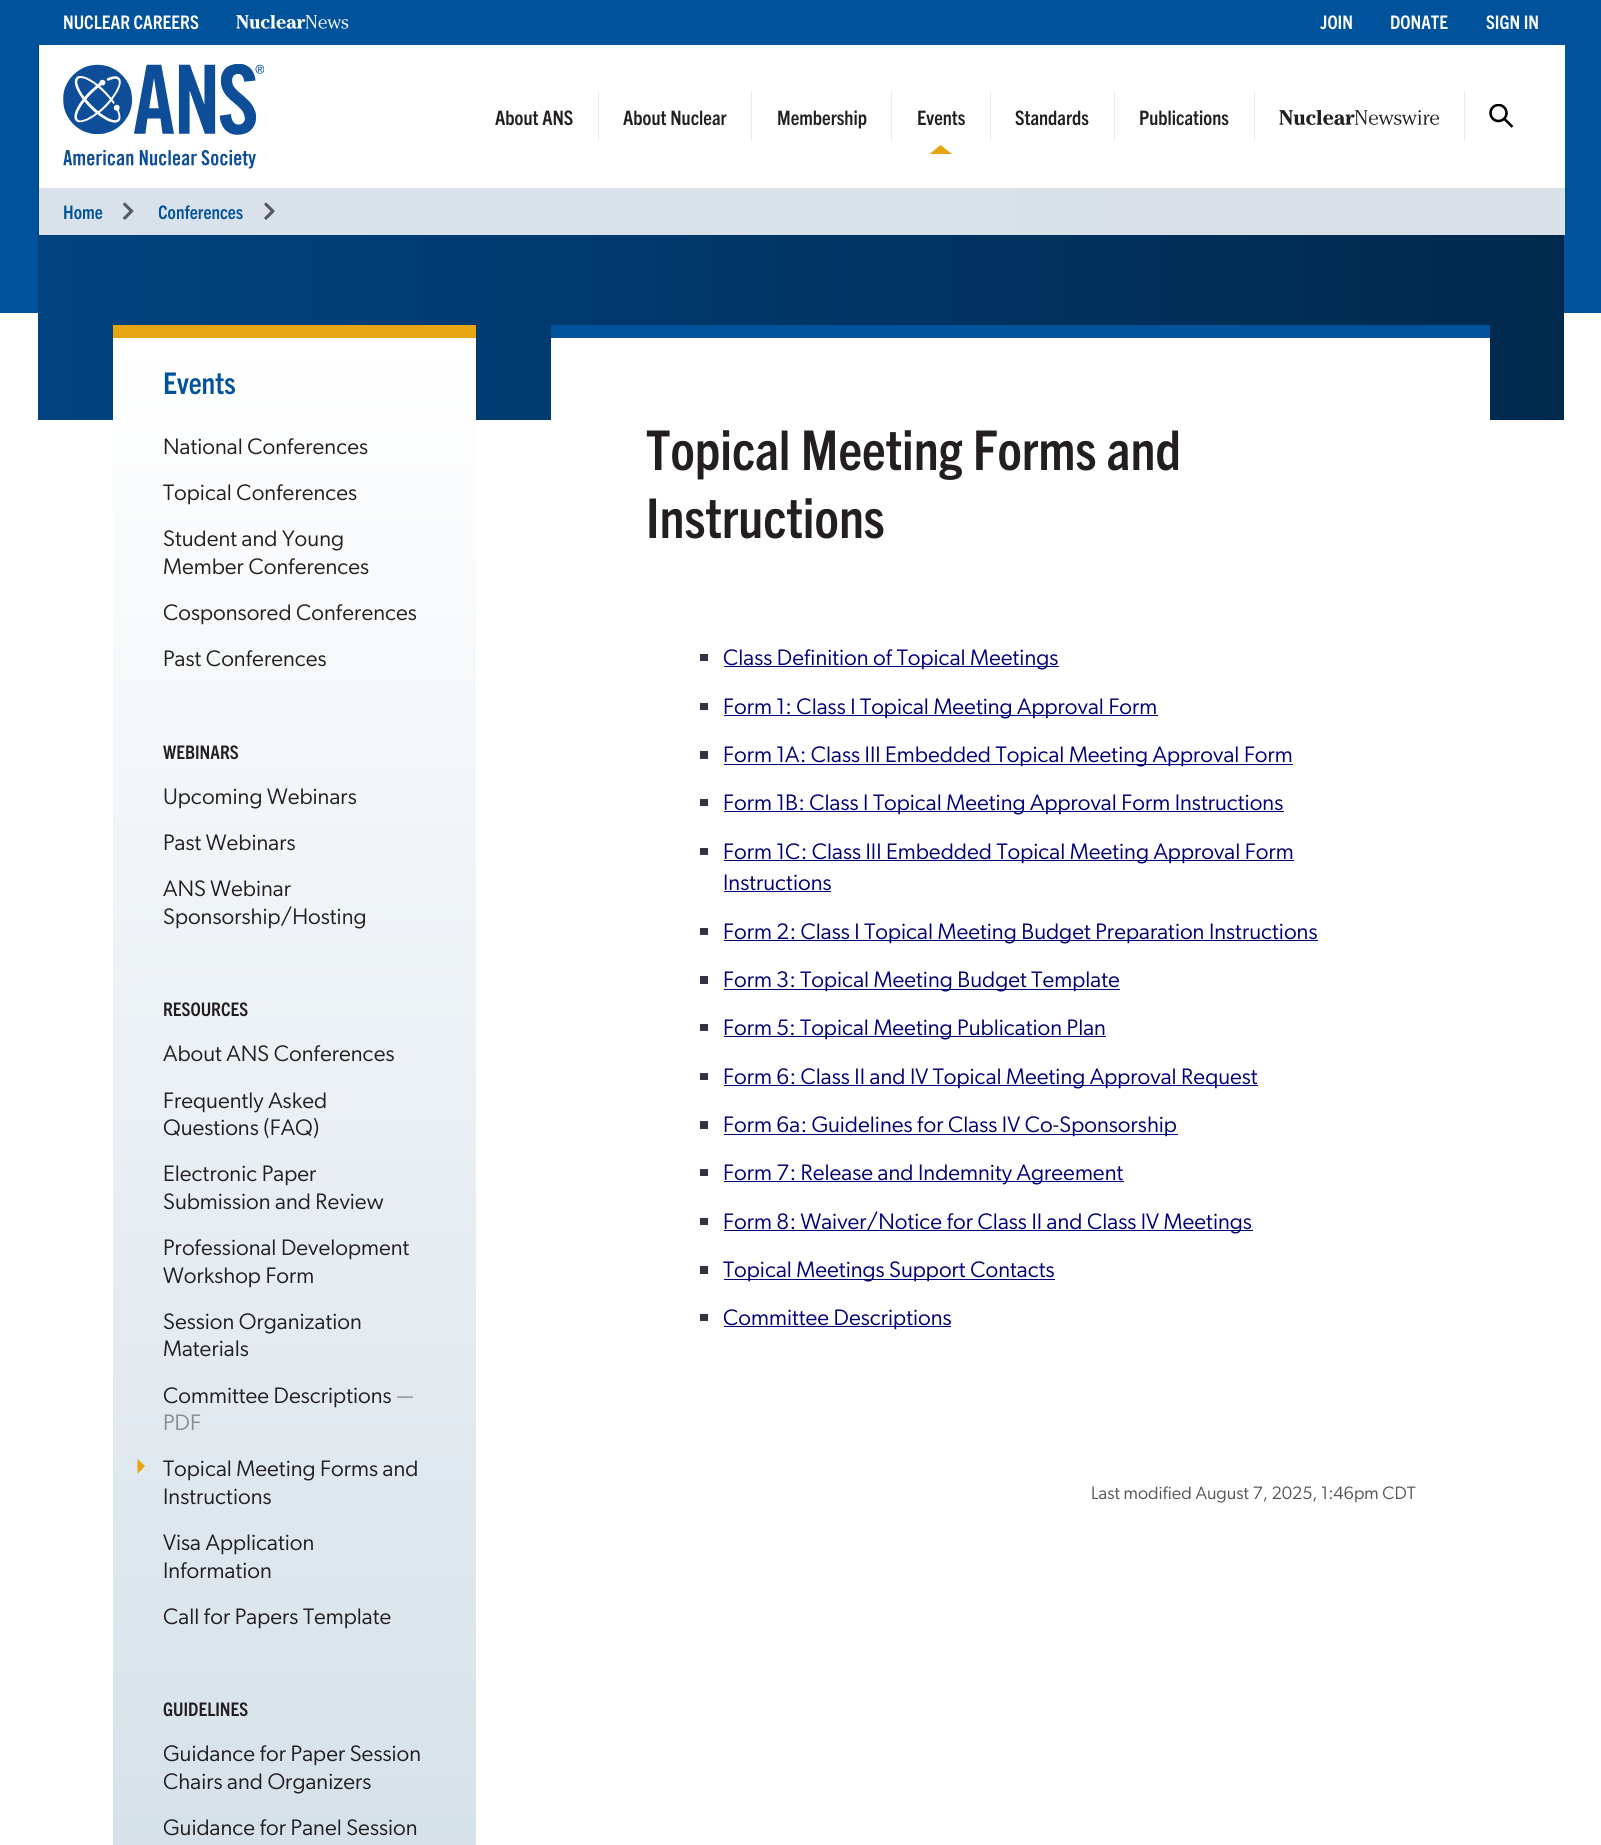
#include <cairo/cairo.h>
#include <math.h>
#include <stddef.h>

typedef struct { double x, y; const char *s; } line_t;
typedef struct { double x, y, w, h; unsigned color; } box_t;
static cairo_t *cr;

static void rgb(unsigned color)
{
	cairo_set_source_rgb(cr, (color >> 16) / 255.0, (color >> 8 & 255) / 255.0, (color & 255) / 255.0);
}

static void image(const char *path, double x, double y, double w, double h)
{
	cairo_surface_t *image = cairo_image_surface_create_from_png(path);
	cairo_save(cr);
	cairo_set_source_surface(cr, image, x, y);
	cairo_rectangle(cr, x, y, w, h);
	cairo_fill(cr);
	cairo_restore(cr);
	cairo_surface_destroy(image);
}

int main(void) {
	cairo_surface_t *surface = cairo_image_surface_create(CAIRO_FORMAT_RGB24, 1601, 1845);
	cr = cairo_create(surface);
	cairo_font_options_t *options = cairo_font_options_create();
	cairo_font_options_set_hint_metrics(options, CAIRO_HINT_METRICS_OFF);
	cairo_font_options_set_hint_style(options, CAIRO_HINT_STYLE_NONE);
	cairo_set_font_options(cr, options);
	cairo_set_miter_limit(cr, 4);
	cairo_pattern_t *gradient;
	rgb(0xffffff);
	cairo_paint(cr);
	rgb(0x00539b);
	cairo_rectangle(cr, 0, 0, 1601, 313);
	cairo_fill(cr);
	image("img/1.png", 236, 15, 113, 14);
	gradient = cairo_pattern_create_linear(38, 233, 1564, 232);
	cairo_pattern_add_color_stop_rgba(gradient, 0, 0, 0.263, 0.502, 1);
	cairo_pattern_add_color_stop_rgba(gradient, 1, 0, 0.161, 0.302, 1);
	cairo_set_source(cr, gradient);
	cairo_pattern_destroy(gradient);
	cairo_rectangle(cr, 38, 45, 1526, 375);
	cairo_fill(cr);
	rgb(0xffffff);
	cairo_rectangle(cr, 39, 45, 1526, 143);
	cairo_fill(cr);
	image("img/2.png", 63, 64, 201, 105);
	{
		static const box_t items[] = {
			{598, 91, 1, 50, 0xe7edf1},
			{751, 91, 1, 50, 0xe7edf1},
			{891, 91, 1, 50, 0xe7edf1},
			{990, 91, 1, 50, 0xe7edf1},
		};
		for (size_t i = 0; i < sizeof items / sizeof *items; i++) {
			rgb(items[i].color);
			cairo_rectangle(cr, items[i].x, items[i].y, items[i].w, items[i].h);
			cairo_fill(cr);
		}
	}
	rgb(0xe7a512);
	cairo_new_path(cr);
	cairo_move_to(cr, 952, 154);
	cairo_line_to(cr, 929.5, 154);
	cairo_line_to(cr, 940.5, 145);
	cairo_close_path(cr);
	cairo_fill(cr);
	rgb(0xe7edf1);
	cairo_rectangle(cr, 1114, 91, 1, 50);
	cairo_fill(cr);
	cairo_rectangle(cr, 1254, 91, 1, 50);
	cairo_fill(cr);
	image("img/3.png", 1279, 110, 160, 15);
	cairo_rectangle(cr, 1464, 91, 1, 50);
	cairo_fill(cr);
	cairo_new_path(cr);
	cairo_move_to(cr, 1504.5, 119);
	cairo_line_to(cr, 1511.5, 126);
	rgb(0x000000);
	cairo_set_line_width(cr, 2.6);
	cairo_set_line_cap(cr, CAIRO_LINE_CAP_SQUARE);
	cairo_stroke(cr);
	rgb(0xffffff);
	cairo_arc(cr, 1498.5, 113, 8, 0, 2 * M_PI);
	cairo_fill(cr);
	cairo_save(cr);
	cairo_rectangle(cr, 1489, 104, 25, 25);
	cairo_clip(cr);
	cairo_arc(cr, 1498.5, 113, 8, 0, 2 * M_PI);
	rgb(0x000000);
	cairo_set_line_cap(cr, CAIRO_LINE_CAP_BUTT);
	cairo_stroke(cr);
	cairo_restore(cr);
	gradient = cairo_pattern_create_linear(38, 233, 1564, 232);
	cairo_pattern_add_color_stop_rgba(gradient, 0, 0.851, 0.886, 0.922, 1);
	cairo_pattern_add_color_stop_rgba(gradient, 1, 0.851, 0.878, 0.906, 1);
	cairo_set_source(cr, gradient);
	cairo_pattern_destroy(gradient);
	cairo_rectangle(cr, 39, 188, 1525, 47);
	cairo_fill(cr);
	image("img/4.png", 123, 202, 11, 18);
	image("img/5.png", 264, 202, 11, 18);
	rgb(0xd9e3ed);
	cairo_rectangle(cr, 1564, 188, 1, 47);
	cairo_fill(cr);
	rgb(0xe7a512);
	cairo_rectangle(cr, 113, 325, 363, 13);
	cairo_fill(cr);
	gradient = cairo_pattern_create_linear(294, 338, 294, 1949);
	cairo_pattern_add_color_stop_rgba(gradient, 0, 1, 1, 1, 1);
	cairo_pattern_add_color_stop_rgba(gradient, 1, 0.827, 0.875, 0.91, 1);
	cairo_set_source(cr, gradient);
	cairo_pattern_destroy(gradient);
	cairo_rectangle(cr, 113, 338, 363, 1507);
	cairo_fill(cr);
	rgb(0xe7a512);
	cairo_new_path(cr);
	cairo_move_to(cr, 137.5, 1474);
	cairo_line_to(cr, 137.5, 1459);
	cairo_line_to(cr, 145, 1466);
	cairo_close_path(cr);
	cairo_fill(cr);
	{
		static const box_t items[] = {
			{551, 338, 939, 82, 0xffffff},
			{551, 325, 939, 13, 0x00539b},
			{700, 654, 8, 7, 0x333346},
			{724, 666, 335, 1, 0x000077},
			{700, 703, 8, 7, 0x333346},
			{724, 715, 434, 1, 0x000077},
			{700, 751, 8, 8, 0x333346},
			{724, 764, 569, 1, 0x000077},
			{700, 799, 8, 7, 0x333346},
			{724, 811, 560, 1, 0x000077},
			{700, 848, 8, 7, 0x333346},
			{724, 860, 570, 1, 0x000077},
			{724, 891, 107, 1, 0x000077},
			{700, 928, 8, 7, 0x333346},
			{724, 940, 594, 1, 0x000077},
			{700, 976, 8, 8, 0x333346},
			{724, 989, 396, 1, 0x000077},
			{700, 1024, 8, 7, 0x333346},
			{724, 1036, 382, 1, 0x000077},
			{700, 1073, 8, 7, 0x333346},
			{724, 1085, 534, 1, 0x000077},
			{700, 1121, 8, 8, 0x333346},
			{724, 1134, 454, 1, 0x000077},
			{700, 1169, 8, 7, 0x333346},
			{724, 1181, 400, 1, 0x000077},
			{700, 1218, 8, 7, 0x333346},
			{724, 1230, 529, 1, 0x000077},
			{700, 1266, 8, 8, 0x333346},
			{724, 1279, 331, 1, 0x000077},
			{700, 1314, 8, 7, 0x333346},
			{724, 1326, 227, 1, 0x000077},
		};
		for (size_t i = 0; i < sizeof items / sizeof *items; i++) {
			rgb(items[i].color);
			cairo_rectangle(cr, items[i].x, items[i].y, items[i].w, items[i].h);
			cairo_fill(cr);
		}
	}
	cairo_select_font_face(cr, "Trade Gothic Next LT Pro", CAIRO_FONT_SLANT_NORMAL, CAIRO_FONT_WEIGHT_BOLD);
	cairo_set_font_size(cr, 18.75);
	rgb(0xffffff);
	{
		static const line_t items[] = {
			{63, 29, "NUCLEAR CAREERS"},
			{1320, 29, "JOIN"},
			{1390, 29, "DONATE"},
			{1486, 29, "SIGN IN"},
		};
		for (size_t i = 0; i < sizeof items / sizeof *items; i++) {
			cairo_move_to(cr, items[i].x, items[i].y);
			cairo_show_text(cr, items[i].s);
		}
	}
	cairo_set_font_size(cr, 20);
	rgb(0x231f20);
	{
		static const line_t items[] = {
			{495, 125, "About ANS"},
			{623, 125, "About Nuclear"},
			{777, 125, "Membership"},
			{917, 125, "Events"},
			{1015, 125, "Standards"},
			{1139, 125, "Publications"},
		};
		for (size_t i = 0; i < sizeof items / sizeof *items; i++) {
			cairo_move_to(cr, items[i].x, items[i].y);
			cairo_show_text(cr, items[i].s);
		}
	}
	cairo_save(cr);
	cairo_rectangle(cr, 64, 194, 72, 35);
	cairo_clip(cr);
	cairo_set_font_size(cr, 18.75);
	rgb(0x00539b);
	cairo_move_to(cr, 63, 219);
	cairo_show_text(cr, "Home");
	cairo_restore(cr);
	cairo_save(cr);
	cairo_rectangle(cr, 159, 194, 117, 35);
	cairo_clip(cr);
	cairo_set_font_size(cr, 18.75);
	rgb(0x00539b);
	cairo_move_to(cr, 158, 219);
	cairo_show_text(cr, "Conferences");
	cairo_restore(cr);
	cairo_set_font_size(cr, 30);
	rgb(0x00539b);
	cairo_move_to(cr, 163, 394);
	cairo_show_text(cr, "Events");
	cairo_select_font_face(cr, "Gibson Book", CAIRO_FONT_SLANT_NORMAL, CAIRO_FONT_WEIGHT_NORMAL);
	cairo_set_font_size(cr, 22.5);
	rgb(0x231f20);
	{
		static const line_t items[] = {
			{163, 454, "National Conferences"},
			{163, 500, "Topical Conferences"},
			{163, 546, "Student and Young"},
			{163, 574, "Member Conferences"},
			{163, 620, "Cosponsored Conferences"},
			{163, 666, "Past Conferences"},
		};
		for (size_t i = 0; i < sizeof items / sizeof *items; i++) {
			cairo_move_to(cr, items[i].x, items[i].y);
			cairo_show_text(cr, items[i].s);
		}
	}
	cairo_select_font_face(cr, "Trade Gothic Next LT Pro", CAIRO_FONT_SLANT_NORMAL, CAIRO_FONT_WEIGHT_BOLD);
	cairo_set_font_size(cr, 18.75);
	cairo_move_to(cr, 163, 759);
	cairo_show_text(cr, "WEBINARS");
	cairo_select_font_face(cr, "Gibson Book", CAIRO_FONT_SLANT_NORMAL, CAIRO_FONT_WEIGHT_NORMAL);
	cairo_set_font_size(cr, 22.5);
	{
		static const line_t items[] = {
			{163, 804, "Upcoming Webinars"},
			{163, 850, "Past Webinars"},
			{163, 896, "ANS Webinar"},
			{163, 924, "Sponsorship/Hosting"},
		};
		for (size_t i = 0; i < sizeof items / sizeof *items; i++) {
			cairo_move_to(cr, items[i].x, items[i].y);
			cairo_show_text(cr, items[i].s);
		}
	}
	cairo_select_font_face(cr, "Trade Gothic Next LT Pro", CAIRO_FONT_SLANT_NORMAL, CAIRO_FONT_WEIGHT_BOLD);
	cairo_set_font_size(cr, 18.75);
	cairo_move_to(cr, 163, 1016);
	cairo_show_text(cr, "RESOURCES");
	cairo_select_font_face(cr, "Gibson Book", CAIRO_FONT_SLANT_NORMAL, CAIRO_FONT_WEIGHT_NORMAL);
	cairo_set_font_size(cr, 22.5);
	{
		static const line_t items[] = {
			{163, 1061, "About ANS Conferences"},
			{163, 1108, "Frequently Asked"},
			{163, 1135, "Questions (FAQ)"},
			{163, 1181, "Electronic Paper"},
			{163, 1209, "Submission and Review"},
			{163, 1255, "Professional Development"},
			{163, 1283, "Workshop Form"},
			{163, 1329, "Session Organization"},
			{163, 1356, "Materials"},
			{163, 1403, "Committee Descriptions"},
		};
		for (size_t i = 0; i < sizeof items / sizeof *items; i++) {
			cairo_move_to(cr, items[i].x, items[i].y);
			cairo_show_text(cr, items[i].s);
		}
	}
	rgb(0x888c90);
	cairo_move_to(cr, 396, 1403);
	cairo_show_text(cr, "—");
	cairo_move_to(cr, 163, 1430);
	cairo_show_text(cr, "PDF");
	rgb(0x231f20);
	{
		static const line_t items[] = {
			{163, 1476, "Topical Meeting Forms and"},
			{163, 1504, "Instructions"},
			{163, 1550, "Visa Application"},
			{163, 1578, "Information"},
			{163, 1624, "Call for Papers Template"},
		};
		for (size_t i = 0; i < sizeof items / sizeof *items; i++) {
			cairo_move_to(cr, items[i].x, items[i].y);
			cairo_show_text(cr, items[i].s);
		}
	}
	cairo_select_font_face(cr, "Trade Gothic Next LT Pro", CAIRO_FONT_SLANT_NORMAL, CAIRO_FONT_WEIGHT_BOLD);
	cairo_set_font_size(cr, 18.75);
	cairo_move_to(cr, 163, 1716);
	cairo_show_text(cr, "GUIDELINES");
	cairo_select_font_face(cr, "Gibson Book", CAIRO_FONT_SLANT_NORMAL, CAIRO_FONT_WEIGHT_NORMAL);
	cairo_set_font_size(cr, 22.5);
	{
		static const line_t items[] = {
			{163, 1761, "Guidance for Paper Session"},
			{163, 1789, "Chairs and Organizers"},
			{163, 1835, "Guidance for Panel Session"},
		};
		for (size_t i = 0; i < sizeof items / sizeof *items; i++) {
			cairo_move_to(cr, items[i].x, items[i].y);
			cairo_show_text(cr, items[i].s);
		}
	}
	cairo_select_font_face(cr, "Trade Gothic Next LT Pro", CAIRO_FONT_SLANT_NORMAL, CAIRO_FONT_WEIGHT_BOLD);
	cairo_set_font_size(cr, 55);
	cairo_move_to(cr, 646, 470);
	cairo_show_text(cr, "Topical Meeting Forms and");
	cairo_move_to(cr, 646, 538);
	cairo_show_text(cr, "Instructions");
	cairo_select_font_face(cr, "Gibson Book", CAIRO_FONT_SLANT_NORMAL, CAIRO_FONT_WEIGHT_NORMAL);
	cairo_set_font_size(cr, 22.5);
	rgb(0x000077);
	{
		static const line_t items[] = {
			{723, 665, "Class Definition of Topical Meetings"},
			{723, 714, "Form 1: Class I Topical Meeting Approval Form"},
			{723, 762, "Form 1A: Class III Embedded Topical Meeting Approval Form"},
			{723, 810, "Form 1B: Class I Topical Meeting Approval Form Instructions"},
			{723, 859, "Form 1C: Class III Embedded Topical Meeting Approval Form"},
			{723, 890, "Instructions"},
			{723, 939, "Form 2: Class I Topical Meeting Budget Preparation Instructions"},
			{723, 987, "Form 3: Topical Meeting Budget Template"},
			{723, 1035, "Form 5: Topical Meeting Publication Plan"},
			{723, 1084, "Form 6: Class II and IV Topical Meeting Approval Request"},
			{723, 1132, "Form 6a: Guidelines for Class IV Co-Sponsorship"},
			{723, 1180, "Form 7: Release and Indemnity Agreement"},
			{723, 1229, "Form 8: Waiver/Notice for Class II and Class IV Meetings"},
			{723, 1277, "Topical Meetings Support Contacts"},
			{723, 1325, "Committee Descriptions"},
		};
		for (size_t i = 0; i < sizeof items / sizeof *items; i++) {
			cairo_move_to(cr, items[i].x, items[i].y);
			cairo_show_text(cr, items[i].s);
		}
	}
	cairo_set_font_size(cr, 18);
	rgb(0x555555);
	cairo_move_to(cr, 1091, 1499);
	cairo_show_text(cr, "Last modified August 7, 2025, 1:46pm CDT");
	cairo_surface_write_to_png(surface, "page.png");
	cairo_font_options_destroy(options);
	cairo_destroy(cr);
	cairo_surface_destroy(surface);
	return 0;
}
